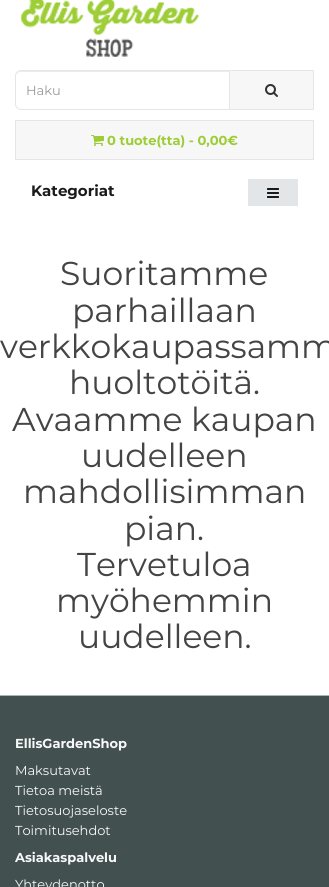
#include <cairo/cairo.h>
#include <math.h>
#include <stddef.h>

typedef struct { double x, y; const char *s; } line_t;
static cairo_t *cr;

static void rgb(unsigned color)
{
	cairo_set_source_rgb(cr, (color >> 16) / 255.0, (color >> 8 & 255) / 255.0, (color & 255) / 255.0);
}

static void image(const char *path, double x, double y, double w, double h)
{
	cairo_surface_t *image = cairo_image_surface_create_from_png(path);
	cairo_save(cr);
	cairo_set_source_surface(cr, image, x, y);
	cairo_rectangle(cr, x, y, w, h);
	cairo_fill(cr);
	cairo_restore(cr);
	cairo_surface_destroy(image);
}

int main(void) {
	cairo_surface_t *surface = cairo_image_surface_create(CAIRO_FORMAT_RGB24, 329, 887);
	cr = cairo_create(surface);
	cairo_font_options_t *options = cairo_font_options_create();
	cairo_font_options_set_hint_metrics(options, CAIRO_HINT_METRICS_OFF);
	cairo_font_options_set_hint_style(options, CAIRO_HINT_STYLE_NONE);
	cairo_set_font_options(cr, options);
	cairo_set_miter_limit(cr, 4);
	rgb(0xffffff);
	cairo_paint(cr);
	image("img/1.png", 20, 0, 179, 57);
	rgb(0xececec);
	cairo_new_path(cr);
	cairo_move_to(cr, 21, 72);
	cairo_line_to(cr, 229, 72);
	cairo_line_to(cr, 229, 71);
	cairo_line_to(cr, 20, 71);
	cairo_curve_to(cr, 17, 72, 16, 74, 16, 77);
	cairo_curve_to(cr, 16, 74, 18, 72, 21, 72);
	cairo_close_path(cr);
	cairo_fill(cr);
	cairo_new_path(cr);
	cairo_move_to(cr, 21, 70.5);
	cairo_line_to(cr, 229.5, 70.5);
	cairo_line_to(cr, 229.5, 109.5);
	cairo_line_to(cr, 21, 109.5);
	cairo_curve_to(cr, 18, 109.5, 15.5, 107, 15.5, 104);
	cairo_line_to(cr, 15.5, 76);
	cairo_curve_to(cr, 15.5, 73, 18, 70.5, 21, 70.5);
	cairo_close_path(cr);
	rgb(0xe6e6e6);
	cairo_set_line_width(cr, 1);
	cairo_stroke(cr);
	rgb(0xf7f7f7);
	cairo_rectangle(cr, 229.5, 70.5, 84, 39);
	cairo_fill_preserve(cr);
	rgb(0xe6e6e6);
	cairo_stroke(cr);
	image("img/2.png", 265, 84, 13, 13);
	rgb(0xf7f7f7);
	cairo_rectangle(cr, 15.5, 120.5, 298, 39);
	cairo_fill_preserve(cr);
	rgb(0xe6e6e6);
	cairo_stroke(cr);
	image("img/3.png", 91, 135, 13, 11);
	rgb(0xe2e6e9);
	cairo_rectangle(cr, 248, 179, 50, 27);
	cairo_fill(cr);
	image("img/4.png", 267, 188, 12, 10);
	rgb(0x435050);
	cairo_rectangle(cr, 0, 696, 329, 191);
	cairo_fill(cr);
	rgb(0xa9b5bc);
	cairo_rectangle(cr, 0, 695, 329, 1);
	cairo_fill(cr);
	cairo_select_font_face(cr, "Montserrat", CAIRO_FONT_SLANT_NORMAL, CAIRO_FONT_WEIGHT_NORMAL);
	cairo_set_font_size(cr, 13);
	rgb(0x999999);
	cairo_move_to(cr, 26, 95);
	cairo_show_text(cr, "Haku");
	cairo_select_font_face(cr, "Montserrat", CAIRO_FONT_SLANT_NORMAL, CAIRO_FONT_WEIGHT_BOLD);
	rgb(0x9ccd36);
	cairo_move_to(cr, 107, 145);
	cairo_show_text(cr, "0 tuote(tta) - 0,00€");
	cairo_set_font_size(cr, 15);
	rgb(0x1a1a1a);
	cairo_move_to(cr, 31, 196);
	cairo_show_text(cr, "Kategoriat");
	cairo_select_font_face(cr, "Montserrat", CAIRO_FONT_SLANT_NORMAL, CAIRO_FONT_WEIGHT_NORMAL);
	cairo_set_font_size(cr, 33);
	rgb(0x444444);
	{
		static const line_t items[] = {
			{60, 285, "Suoritamme"},
			{72, 322, "parhaillaan"},
			{0, 358, "verkkokaupassamm"},
			{69, 394, "huoltotöitä."},
			{12, 431, "Avaamme kaupan"},
			{81, 467, "uudelleen"},
			{23, 503, "mahdollisimman"},
			{124, 540, "pian."},
			{77, 576, "Tervetuloa"},
			{56, 612, "myöhemmin"},
			{78, 648, "uudelleen."},
		};
		for (size_t i = 0; i < sizeof items / sizeof *items; i++) {
			cairo_move_to(cr, items[i].x, items[i].y);
			cairo_show_text(cr, items[i].s);
		}
	}
	cairo_select_font_face(cr, "Montserrat", CAIRO_FONT_SLANT_NORMAL, CAIRO_FONT_WEIGHT_BOLD);
	cairo_set_font_size(cr, 13);
	rgb(0xf8f8f9);
	cairo_move_to(cr, 15, 748);
	cairo_show_text(cr, "EllisGardenShop");
	cairo_select_font_face(cr, "Montserrat", CAIRO_FONT_SLANT_NORMAL, CAIRO_FONT_WEIGHT_NORMAL);
	{
		static const line_t items[] = {
			{15, 775, "Maksutavat"},
			{15, 795, "Tietoa meistä"},
			{15, 815, "Tietosuojaseloste"},
			{15, 835, "Toimitusehdot"},
		};
		for (size_t i = 0; i < sizeof items / sizeof *items; i++) {
			cairo_move_to(cr, items[i].x, items[i].y);
			cairo_show_text(cr, items[i].s);
		}
	}
	cairo_select_font_face(cr, "Montserrat", CAIRO_FONT_SLANT_NORMAL, CAIRO_FONT_WEIGHT_BOLD);
	cairo_move_to(cr, 15, 862);
	cairo_show_text(cr, "Asiakaspalvelu");
	cairo_select_font_face(cr, "Montserrat", CAIRO_FONT_SLANT_NORMAL, CAIRO_FONT_WEIGHT_NORMAL);
	cairo_move_to(cr, 15, 889);
	cairo_show_text(cr, "Yhteydenotto");
	cairo_surface_write_to_png(surface, "page.png");
	cairo_font_options_destroy(options);
	cairo_destroy(cr);
	cairo_surface_destroy(surface);
	return 0;
}
